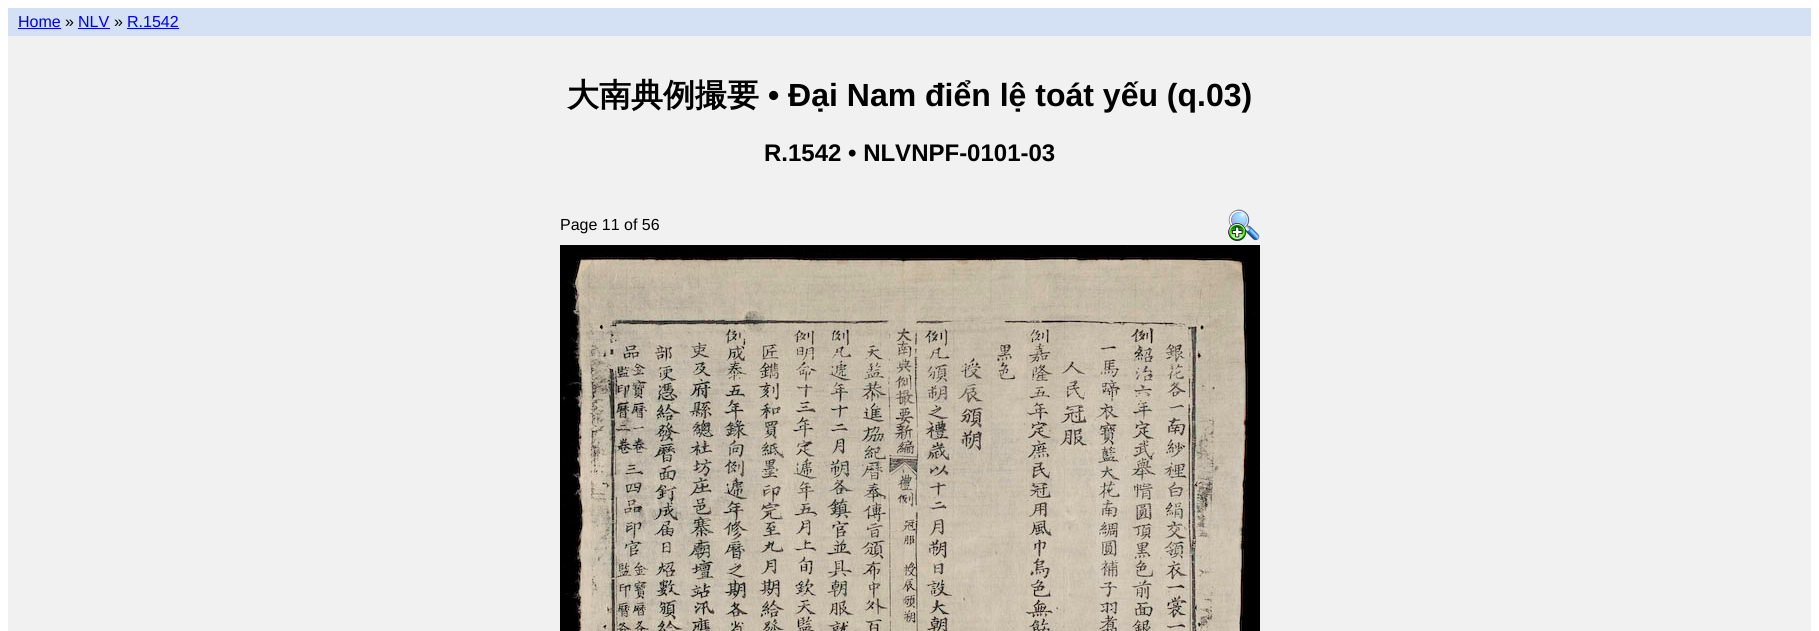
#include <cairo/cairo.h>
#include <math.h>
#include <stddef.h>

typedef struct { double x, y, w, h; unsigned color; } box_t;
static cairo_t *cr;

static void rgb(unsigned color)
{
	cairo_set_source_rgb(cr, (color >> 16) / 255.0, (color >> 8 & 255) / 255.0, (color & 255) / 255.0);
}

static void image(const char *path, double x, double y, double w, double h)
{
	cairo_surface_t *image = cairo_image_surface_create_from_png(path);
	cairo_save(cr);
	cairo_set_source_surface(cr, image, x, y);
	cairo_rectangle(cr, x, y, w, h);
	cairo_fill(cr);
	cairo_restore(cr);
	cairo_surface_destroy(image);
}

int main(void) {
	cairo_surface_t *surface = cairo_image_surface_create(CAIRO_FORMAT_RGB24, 1819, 631);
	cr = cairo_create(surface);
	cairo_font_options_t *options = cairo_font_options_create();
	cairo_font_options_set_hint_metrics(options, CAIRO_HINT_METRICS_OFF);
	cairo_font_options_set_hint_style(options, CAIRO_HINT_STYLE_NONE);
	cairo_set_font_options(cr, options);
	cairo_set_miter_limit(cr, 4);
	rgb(0xffffff);
	cairo_paint(cr);
	{
		static const box_t items[] = {
			{8, 36, 1803, 595, 0xf1f1f1},
			{8, 8, 1803, 28, 0xd4e0f3},
			{18, 28, 43, 1, 0x0000ee},
			{78, 28, 32, 1, 0x0000ee},
			{127, 28, 52, 1, 0x0000ee},
		};
		for (size_t i = 0; i < sizeof items / sizeof *items; i++) {
			rgb(items[i].color);
			cairo_rectangle(cr, items[i].x, items[i].y, items[i].w, items[i].h);
			cairo_fill(cr);
		}
	}
	image("img/1.png", 1228, 209, 32, 32);
	image("img/2.png", 560, 245, 700, 386);
	cairo_select_font_face(cr, "Liberation Sans", CAIRO_FONT_SLANT_NORMAL, CAIRO_FONT_WEIGHT_NORMAL);
	cairo_set_font_size(cr, 16);
	cairo_move_to(cr, 18, 27);
	cairo_show_text(cr, "Home");
	rgb(0x000000);
	cairo_move_to(cr, 65, 27);
	cairo_show_text(cr, "»");
	rgb(0x0000ee);
	cairo_move_to(cr, 78, 27);
	cairo_show_text(cr, "NLV");
	rgb(0x000000);
	cairo_move_to(cr, 114, 27);
	cairo_show_text(cr, "»");
	rgb(0x0000ee);
	cairo_move_to(cr, 127, 27);
	cairo_show_text(cr, "R.1542");
	cairo_select_font_face(cr, "WenQuanYi Zen Hei", CAIRO_FONT_SLANT_NORMAL, CAIRO_FONT_WEIGHT_BOLD);
	cairo_set_font_size(cr, 32);
	rgb(0x000000);
	cairo_move_to(cr, 567, 106);
	cairo_show_text(cr, "大南典例撮要");
	cairo_select_font_face(cr, "Liberation Sans", CAIRO_FONT_SLANT_NORMAL, CAIRO_FONT_WEIGHT_BOLD);
	cairo_move_to(cr, 768, 106);
	cairo_show_text(cr, "• Đại Nam điển lệ toát yếu (q.03)");
	cairo_set_font_size(cr, 24);
	cairo_move_to(cr, 764, 161);
	cairo_show_text(cr, "R.1542 • NLVNPF-0101-03");
	cairo_select_font_face(cr, "Liberation Sans", CAIRO_FONT_SLANT_NORMAL, CAIRO_FONT_WEIGHT_NORMAL);
	cairo_set_font_size(cr, 16);
	cairo_move_to(cr, 560, 230);
	cairo_show_text(cr, "Page 11 of 56");
	cairo_surface_write_to_png(surface, "page.png");
	cairo_font_options_destroy(options);
	cairo_destroy(cr);
	cairo_surface_destroy(surface);
	return 0;
}
